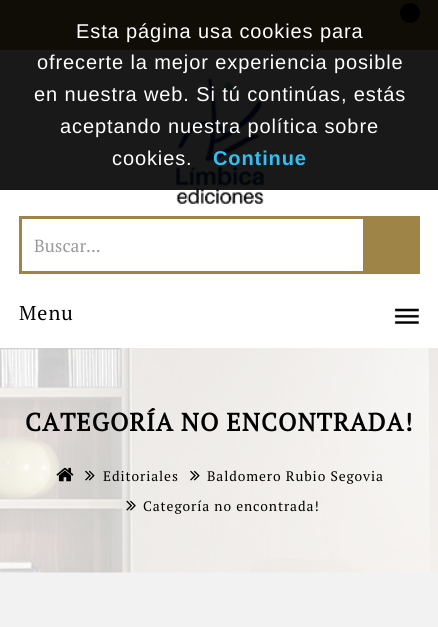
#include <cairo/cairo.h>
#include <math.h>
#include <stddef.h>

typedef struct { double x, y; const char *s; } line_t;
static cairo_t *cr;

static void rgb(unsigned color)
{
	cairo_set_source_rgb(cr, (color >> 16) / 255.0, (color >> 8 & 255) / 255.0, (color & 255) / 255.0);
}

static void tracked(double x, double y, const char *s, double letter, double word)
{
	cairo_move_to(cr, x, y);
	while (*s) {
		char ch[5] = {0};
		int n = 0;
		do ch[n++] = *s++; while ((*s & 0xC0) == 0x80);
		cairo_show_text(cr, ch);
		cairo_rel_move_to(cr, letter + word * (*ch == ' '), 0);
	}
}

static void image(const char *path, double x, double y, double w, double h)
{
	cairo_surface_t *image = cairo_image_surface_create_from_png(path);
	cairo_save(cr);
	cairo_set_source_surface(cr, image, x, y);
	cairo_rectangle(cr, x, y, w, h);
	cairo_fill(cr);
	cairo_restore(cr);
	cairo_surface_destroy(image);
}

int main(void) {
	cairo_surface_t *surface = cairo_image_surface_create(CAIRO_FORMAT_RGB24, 438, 627);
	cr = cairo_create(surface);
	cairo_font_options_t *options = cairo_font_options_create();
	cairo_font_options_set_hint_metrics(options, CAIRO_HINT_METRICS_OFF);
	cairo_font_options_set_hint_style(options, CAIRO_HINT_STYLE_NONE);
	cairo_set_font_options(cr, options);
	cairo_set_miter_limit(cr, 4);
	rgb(0xf2f2f2);
	cairo_paint(cr);
	rgb(0x9f8447);
	cairo_rectangle(cr, 0, 0, 438, 50);
	cairo_fill(cr);
	rgb(0xffffff);
	cairo_rectangle(cr, 0, 50, 438, 298);
	cairo_fill(cr);
	image("img/1.png", 176, 78, 88, 126);
	rgb(0x000000);
	cairo_arc(cr, 410, 13, 10, 0, 2 * M_PI);
	cairo_fill(cr);
	cairo_set_source_rgba(cr, 0, 0, 0, 0.9);
	cairo_rectangle(cr, 0, 0, 438, 190);
	cairo_fill(cr);
	cairo_rectangle(cr, 20.5, 217.5, 398, 55);
	rgb(0x9f8447);
	cairo_set_line_width(cr, 3);
	cairo_stroke(cr);
	cairo_rectangle(cr, 363, 219, 54, 52);
	cairo_fill(cr);
	image("img/2.png", 394, 308, 25, 16);
	image("img/3.png", 0, 348, 438, 225);
	image("img/4.png", 56, 467, 18, 15);
	image("img/5.png", 85, 470, 10, 11);
	image("img/6.png", 190, 470, 10, 11);
	image("img/7.png", 126, 500, 10, 11);
	cairo_select_font_face(cr, "Liberation Sans", CAIRO_FONT_SLANT_NORMAL, CAIRO_FONT_WEIGHT_NORMAL);
	cairo_set_font_size(cr, 20);
	rgb(0xffffff);
	{
		static const line_t items[] = {
			{76, 38, "Esta página usa cookies para"},
			{37, 69, "ofrecerte la mejor experiencia posible"},
			{34, 101, "en nuestra web. Si tú continúas, estás"},
			{60, 133, "aceptando nuestra política sobre"},
			{112, 165, "cookies."},
		};
		for (size_t i = 0; i < sizeof items / sizeof *items; i++) {
			tracked(items[i].x, items[i].y, items[i].s, 0.9, 0);
		}
	}
	cairo_select_font_face(cr, "Liberation Sans", CAIRO_FONT_SLANT_NORMAL, CAIRO_FONT_WEIGHT_BOLD);
	rgb(0x32c0f4);
	tracked(213, 165, "Continue", 0.9, 0);
	cairo_select_font_face(cr, "PT Serif", CAIRO_FONT_SLANT_NORMAL, CAIRO_FONT_WEIGHT_NORMAL);
	cairo_set_font_size(cr, 17.5);
	rgb(0x999999);
	cairo_move_to(cr, 34, 252);
	cairo_show_text(cr, "Buscar...");
	cairo_set_font_size(cr, 20);
	rgb(0x000000);
	tracked(19, 320, "Menu", 1, 0);
	cairo_select_font_face(cr, "PT Serif", CAIRO_FONT_SLANT_NORMAL, CAIRO_FONT_WEIGHT_BOLD);
	cairo_set_font_size(cr, 25);
	tracked(25, 431, "CATEGORÍA NO ENCONTRADA!", 0.9, 0);
	cairo_select_font_face(cr, "PT Serif", CAIRO_FONT_SLANT_NORMAL, CAIRO_FONT_WEIGHT_NORMAL);
	cairo_set_font_size(cr, 13.75);
	{
		static const line_t items[] = {
			{103, 481, "Editoriales"},
			{207, 481, "Baldomero Rubio Segovia"},
			{143, 511, "Categoría no encontrada!"},
		};
		for (size_t i = 0; i < sizeof items / sizeof *items; i++) {
			tracked(items[i].x, items[i].y, items[i].s, 0.9, 0);
		}
	}
	cairo_surface_write_to_png(surface, "page.png");
	cairo_font_options_destroy(options);
	cairo_destroy(cr);
	cairo_surface_destroy(surface);
	return 0;
}
